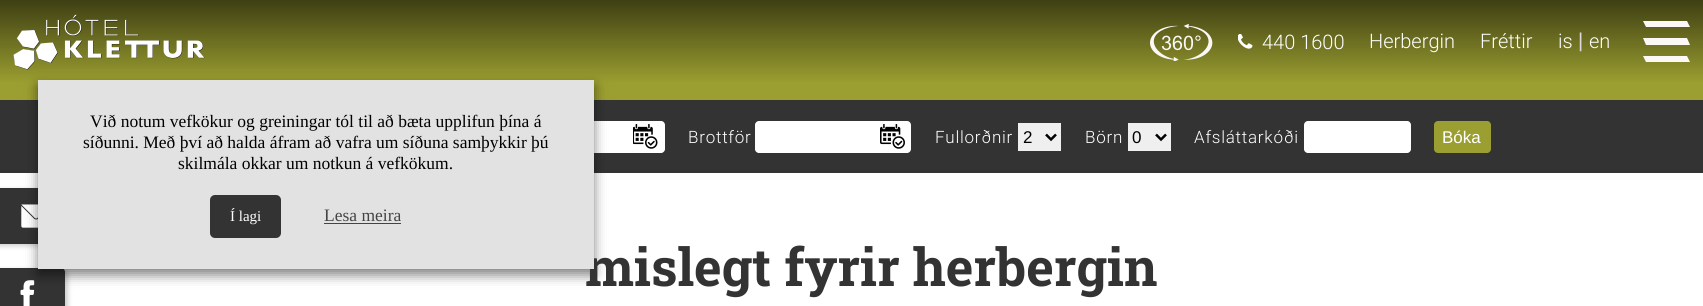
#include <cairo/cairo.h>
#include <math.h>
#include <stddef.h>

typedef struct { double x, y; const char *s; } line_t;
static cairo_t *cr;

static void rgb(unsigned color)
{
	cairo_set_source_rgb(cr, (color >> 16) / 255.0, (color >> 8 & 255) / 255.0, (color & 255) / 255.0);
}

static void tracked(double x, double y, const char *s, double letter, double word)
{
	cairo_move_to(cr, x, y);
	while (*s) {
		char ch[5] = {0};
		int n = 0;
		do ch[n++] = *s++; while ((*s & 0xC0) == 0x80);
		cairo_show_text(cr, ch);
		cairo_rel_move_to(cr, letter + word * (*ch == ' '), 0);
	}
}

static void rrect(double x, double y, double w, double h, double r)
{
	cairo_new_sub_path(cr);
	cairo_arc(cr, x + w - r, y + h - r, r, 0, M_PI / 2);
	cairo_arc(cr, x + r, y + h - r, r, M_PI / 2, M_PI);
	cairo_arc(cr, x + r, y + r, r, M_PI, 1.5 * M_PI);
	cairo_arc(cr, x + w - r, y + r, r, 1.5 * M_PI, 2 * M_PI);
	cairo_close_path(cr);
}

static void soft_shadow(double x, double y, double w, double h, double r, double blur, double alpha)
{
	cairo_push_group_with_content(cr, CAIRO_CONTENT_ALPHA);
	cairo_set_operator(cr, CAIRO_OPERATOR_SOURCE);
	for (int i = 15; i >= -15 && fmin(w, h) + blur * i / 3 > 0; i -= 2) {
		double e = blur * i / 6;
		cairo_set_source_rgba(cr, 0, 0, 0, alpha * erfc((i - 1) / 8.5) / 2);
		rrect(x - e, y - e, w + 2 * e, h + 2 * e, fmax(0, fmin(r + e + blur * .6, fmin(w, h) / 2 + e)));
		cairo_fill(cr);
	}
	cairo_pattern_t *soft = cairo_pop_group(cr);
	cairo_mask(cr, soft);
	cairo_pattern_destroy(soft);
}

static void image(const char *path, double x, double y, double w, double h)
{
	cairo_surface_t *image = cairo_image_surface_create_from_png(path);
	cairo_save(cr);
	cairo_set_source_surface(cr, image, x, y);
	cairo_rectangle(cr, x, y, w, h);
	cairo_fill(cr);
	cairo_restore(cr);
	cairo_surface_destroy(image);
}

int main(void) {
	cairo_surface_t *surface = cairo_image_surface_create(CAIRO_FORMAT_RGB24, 1703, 306);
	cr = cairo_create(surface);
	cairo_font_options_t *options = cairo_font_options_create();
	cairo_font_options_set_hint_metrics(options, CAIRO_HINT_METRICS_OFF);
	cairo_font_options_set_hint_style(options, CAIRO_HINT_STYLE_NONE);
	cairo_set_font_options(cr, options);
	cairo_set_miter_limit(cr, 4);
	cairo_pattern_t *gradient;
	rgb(0xffffff);
	cairo_paint(cr);
	gradient = cairo_pattern_create_linear(852, 0, 852, 83);
	cairo_pattern_add_color_stop_rgba(gradient, 0, 0.243, 0.247, 0.075, 1);
	cairo_pattern_add_color_stop_rgba(gradient, 1, 0.608, 0.62, 0.188, 1);
	cairo_set_source(cr, gradient);
	cairo_pattern_destroy(gradient);
	cairo_rectangle(cr, 0, 0, 1703, 83);
	cairo_fill(cr);
	image("img/1.png", 13, 14, 192, 56);
	image("img/2.png", 1150, 24, 63, 37);
	image("img/3.png", 1238, 34, 15, 15);
	rgb(0xfbf8f7);
	cairo_set_fill_rule(cr, CAIRO_FILL_RULE_EVEN_ODD);
	cairo_new_path(cr);
	cairo_move_to(cr, 1687, 21);
	cairo_line_to(cr, 1643, 21);
	cairo_line_to(cr, 1646, 27);
	cairo_line_to(cr, 1690, 27);
	cairo_close_path(cr);
	cairo_move_to(cr, 1687, 38);
	cairo_line_to(cr, 1643, 38);
	cairo_line_to(cr, 1646, 45);
	cairo_line_to(cr, 1690, 45);
	cairo_close_path(cr);
	cairo_move_to(cr, 1687, 56);
	cairo_line_to(cr, 1643, 56);
	cairo_line_to(cr, 1646, 62);
	cairo_line_to(cr, 1690, 62);
	cairo_close_path(cr);
	cairo_fill(cr);
	rgb(0x333333);
	cairo_rectangle(cr, 0, 100, 1703, 73);
	cairo_fill(cr);
	rgb(0xffffff);
	rrect(509, 121, 156, 32, 4);
	cairo_fill(cr);
	rgb(0x000000);
	soft_shadow(-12, 190, 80, 56, 4, 2.5, 0.2);
	rgb(0x333333);
	cairo_rectangle(cr, 0, 188, 38, 56);
	cairo_fill(cr);
	image("img/6.png", 21, 204, 17, 24);
	rgb(0x000000);
	soft_shadow(-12, 270, 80, 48, 4, 2.5, 0.2);
	rgb(0x333333);
	rrect(-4, 268, 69, 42, 4);
	cairo_fill(cr);
	image("img/7.png", 20, 280, 15, 26);
	rgb(0x9b9e30);
	cairo_rectangle(cr, 0, 83, 1703, 17);
	cairo_fill(cr);
	rgb(0x000000);
	soft_shadow(38, 86, 556, 189, 0, 6, 0.5);
	image("img/4.png", 633, 124, 25, 25);
	rgb(0xffffff);
	rrect(755, 121, 156, 32, 4);
	cairo_fill(cr);
	image("img/5.png", 880, 124, 25, 25);
	rgb(0xefefef);
	cairo_rectangle(cr, 1018, 123, 43, 28);
	cairo_fill(cr);
	cairo_new_path(cr);
	cairo_move_to(cr, 1046, 134.5);
	cairo_line_to(cr, 1051, 139.5);
	cairo_line_to(cr, 1056, 134.5);
	rgb(0x000000);
	cairo_set_line_width(cr, 2.5);
	cairo_stroke(cr);
	rgb(0xefefef);
	cairo_rectangle(cr, 1128, 123, 43, 28);
	cairo_fill(cr);
	cairo_new_path(cr);
	cairo_move_to(cr, 1156, 134.5);
	cairo_line_to(cr, 1161, 139.5);
	cairo_line_to(cr, 1166, 134.5);
	rgb(0x000000);
	cairo_stroke(cr);
	rgb(0xffffff);
	rrect(1304, 121, 107, 32, 4);
	cairo_fill(cr);
	rgb(0x9b9e30);
	rrect(1434, 121, 57, 32, 4);
	cairo_fill(cr);
	cairo_select_font_face(cr, "Roboto Light", CAIRO_FONT_SLANT_NORMAL, CAIRO_FONT_WEIGHT_NORMAL);
	cairo_set_font_size(cr, 20);
	rgb(0xffffff);
	{
		static const line_t items[] = {
			{1262, 49, "440 1600"},
			{1369, 48, "Herbergin"},
			{1480, 48, "Fréttir"},
			{1558, 48, "is"},
		};
		for (size_t i = 0; i < sizeof items / sizeof *items; i++) {
			cairo_move_to(cr, items[i].x, items[i].y);
			cairo_show_text(cr, items[i].s);
		}
	}
	cairo_select_font_face(cr, "Liberation Sans", CAIRO_FONT_SLANT_NORMAL, CAIRO_FONT_WEIGHT_NORMAL);
	rgb(0xdddbdb);
	cairo_move_to(cr, 1578, 47);
	cairo_show_text(cr, "|");
	cairo_select_font_face(cr, "Roboto Light", CAIRO_FONT_SLANT_NORMAL, CAIRO_FONT_WEIGHT_NORMAL);
	rgb(0xffffff);
	cairo_move_to(cr, 1589, 48);
	cairo_show_text(cr, "en");
	cairo_set_font_size(cr, 17);
	tracked(688, 143, "Brottför", 0.75, 0);
	tracked(935, 143, "Fullorðnir", 0.75, 0);
	cairo_select_font_face(cr, "Liberation Sans", CAIRO_FONT_SLANT_NORMAL, CAIRO_FONT_WEIGHT_NORMAL);
	rgb(0x000000);
	tracked(1023, 143, "2", 0.75, 0);
	cairo_select_font_face(cr, "Roboto Light", CAIRO_FONT_SLANT_NORMAL, CAIRO_FONT_WEIGHT_NORMAL);
	rgb(0xffffff);
	tracked(1085, 143, "Börn", 0.75, 0);
	cairo_select_font_face(cr, "Liberation Sans", CAIRO_FONT_SLANT_NORMAL, CAIRO_FONT_WEIGHT_NORMAL);
	rgb(0x000000);
	tracked(1132, 143, "0", 0.75, 0);
	cairo_select_font_face(cr, "Roboto Light", CAIRO_FONT_SLANT_NORMAL, CAIRO_FONT_WEIGHT_NORMAL);
	rgb(0xffffff);
	tracked(1194, 143, "Afsláttarkóði", 0.75, 0);
	cairo_select_font_face(cr, "Liberation Sans", CAIRO_FONT_SLANT_NORMAL, CAIRO_FONT_WEIGHT_NORMAL);
	cairo_move_to(cr, 1442, 143);
	cairo_show_text(cr, "Bóka");
	cairo_select_font_face(cr, "Roboto Slab", CAIRO_FONT_SLANT_NORMAL, CAIRO_FONT_WEIGHT_BOLD);
	cairo_set_font_size(cr, 52.4);
	rgb(0x333333);
	cairo_move_to(cr, 585, 286);
	cairo_show_text(cr, "mislegt fyrir herbergin");
	rgb(0xe2e2e2);
	cairo_rectangle(cr, 38, 80, 556, 189);
	cairo_fill(cr);
	rgb(0x333333);
	rrect(210, 195, 71, 43, 5);
	cairo_fill(cr);
	cairo_select_font_face(cr, "Liberation Serif", CAIRO_FONT_SLANT_NORMAL, CAIRO_FONT_WEIGHT_NORMAL);
	cairo_set_font_size(cr, 15);
	rgb(0xffffff);
	cairo_move_to(cr, 230, 221);
	cairo_show_text(cr, "Í lagi");
	cairo_set_font_size(cr, 17.5);
	rgb(0x444444);
	cairo_move_to(cr, 324, 221);
	cairo_show_text(cr, "Lesa meira");
	cairo_rectangle(cr, 324, 223, 77, 1);
	cairo_fill(cr);
	rgb(0x000000);
	{
		static const line_t items[] = {
			{178, 169, "skilmála okkar um notkun á vefkökum."},
			{83, 148, "síðunni. Með því að halda áfram að vafra um síðuna samþykkir þú"},
			{90, 127, "Við notum vefkökur og greiningar tól til að bæta upplifun þína á"},
		};
		for (size_t i = 0; i < sizeof items / sizeof *items; i++) {
			cairo_move_to(cr, items[i].x, items[i].y);
			cairo_show_text(cr, items[i].s);
		}
	}
	cairo_surface_write_to_png(surface, "page.png");
	cairo_font_options_destroy(options);
	cairo_destroy(cr);
	cairo_surface_destroy(surface);
	return 0;
}
